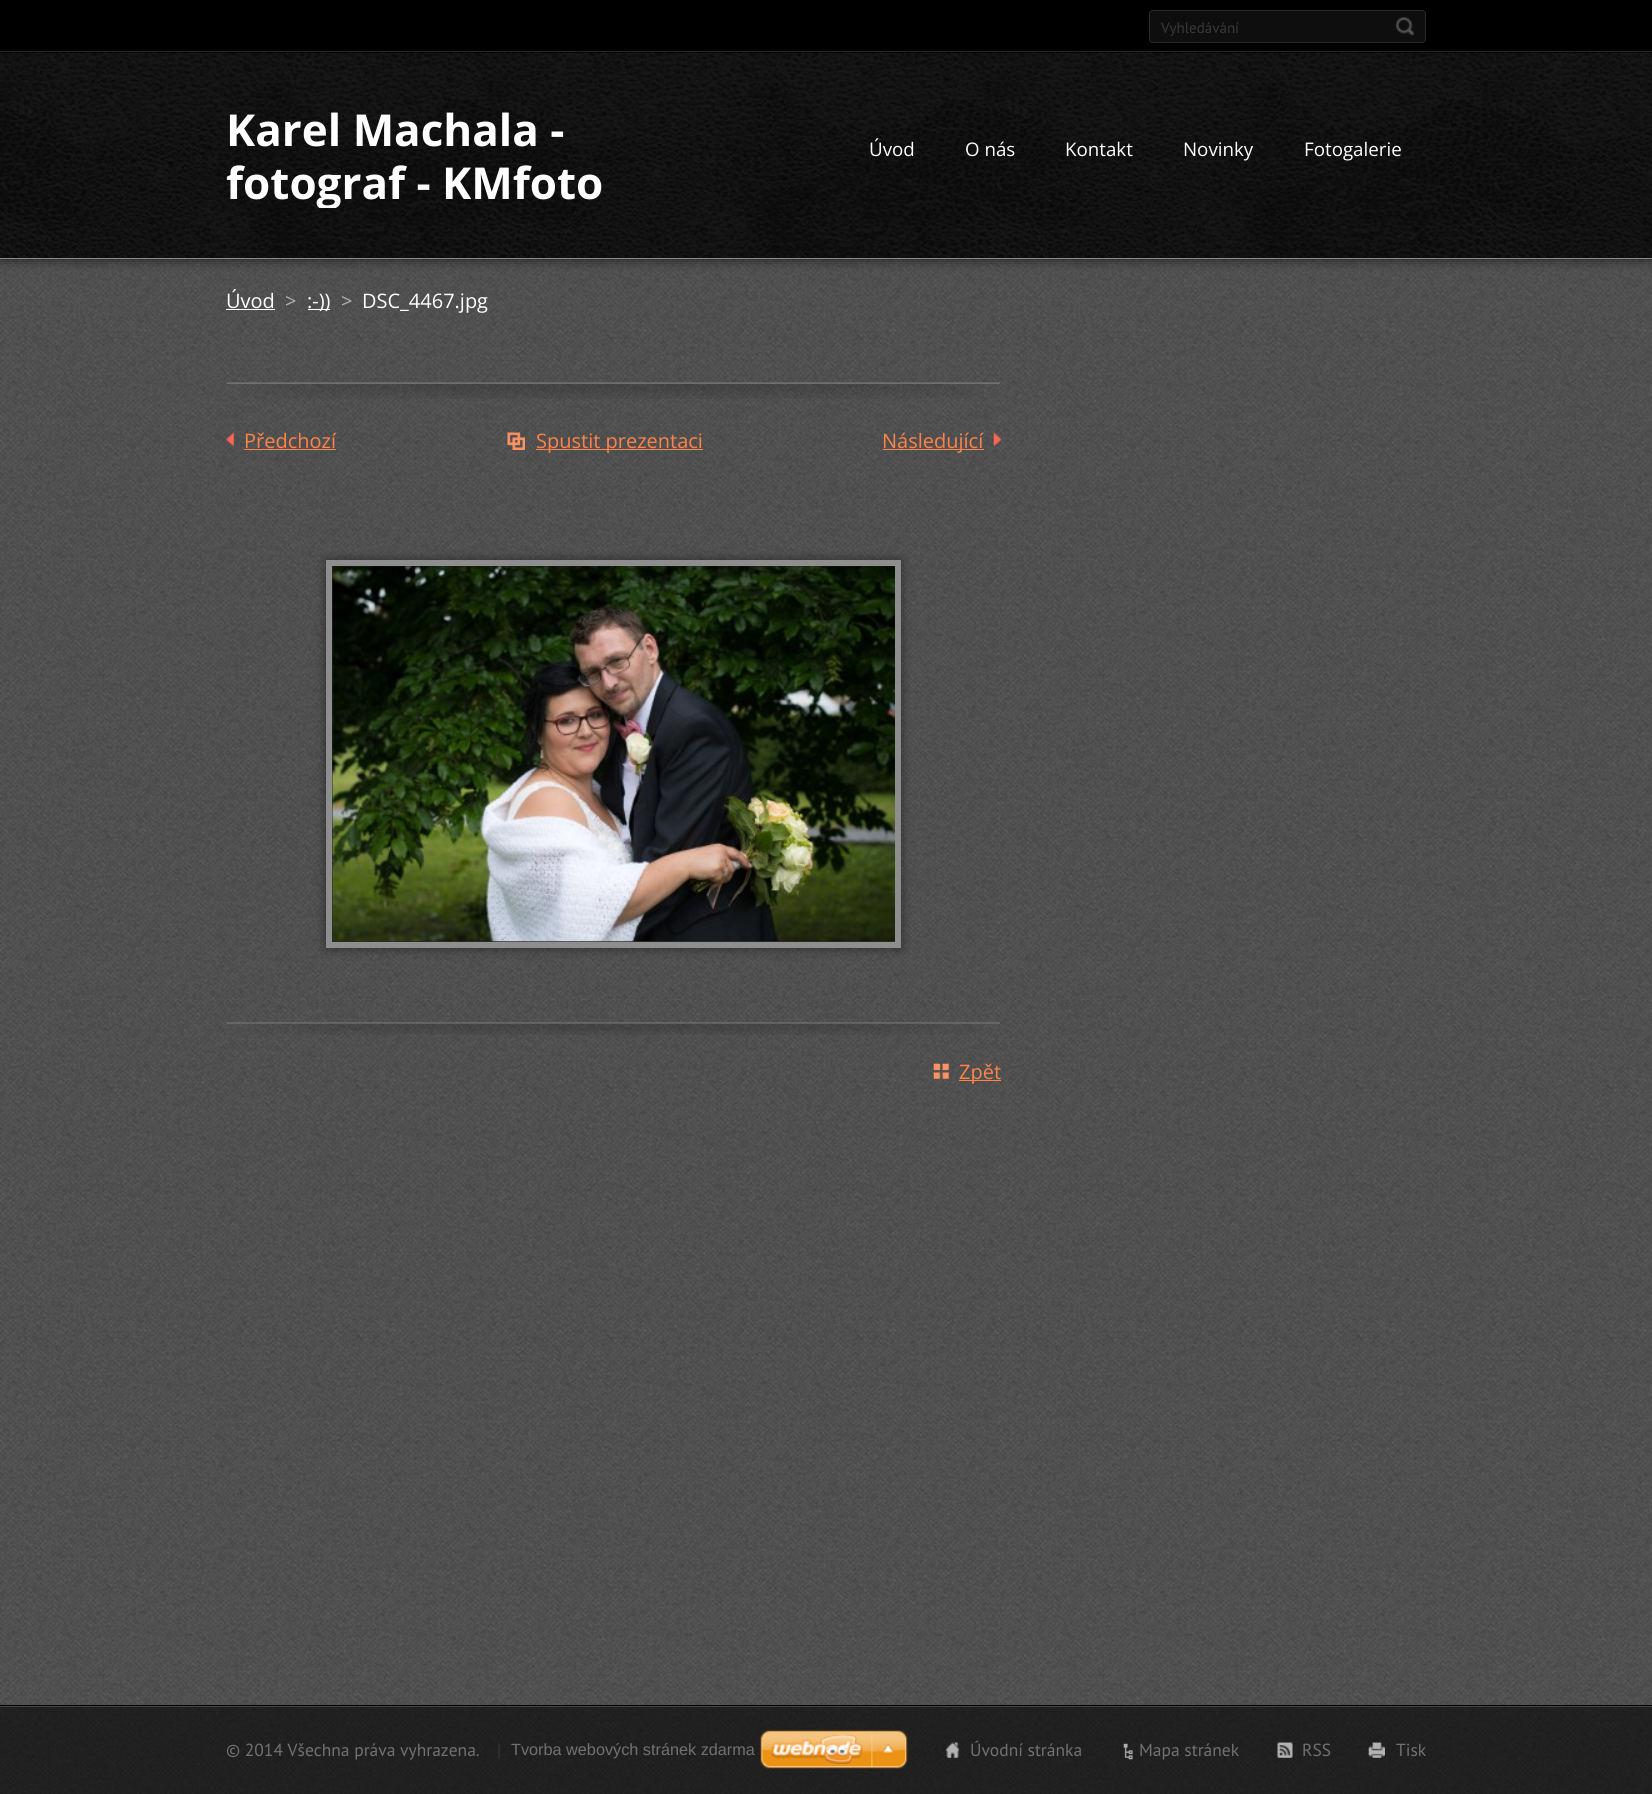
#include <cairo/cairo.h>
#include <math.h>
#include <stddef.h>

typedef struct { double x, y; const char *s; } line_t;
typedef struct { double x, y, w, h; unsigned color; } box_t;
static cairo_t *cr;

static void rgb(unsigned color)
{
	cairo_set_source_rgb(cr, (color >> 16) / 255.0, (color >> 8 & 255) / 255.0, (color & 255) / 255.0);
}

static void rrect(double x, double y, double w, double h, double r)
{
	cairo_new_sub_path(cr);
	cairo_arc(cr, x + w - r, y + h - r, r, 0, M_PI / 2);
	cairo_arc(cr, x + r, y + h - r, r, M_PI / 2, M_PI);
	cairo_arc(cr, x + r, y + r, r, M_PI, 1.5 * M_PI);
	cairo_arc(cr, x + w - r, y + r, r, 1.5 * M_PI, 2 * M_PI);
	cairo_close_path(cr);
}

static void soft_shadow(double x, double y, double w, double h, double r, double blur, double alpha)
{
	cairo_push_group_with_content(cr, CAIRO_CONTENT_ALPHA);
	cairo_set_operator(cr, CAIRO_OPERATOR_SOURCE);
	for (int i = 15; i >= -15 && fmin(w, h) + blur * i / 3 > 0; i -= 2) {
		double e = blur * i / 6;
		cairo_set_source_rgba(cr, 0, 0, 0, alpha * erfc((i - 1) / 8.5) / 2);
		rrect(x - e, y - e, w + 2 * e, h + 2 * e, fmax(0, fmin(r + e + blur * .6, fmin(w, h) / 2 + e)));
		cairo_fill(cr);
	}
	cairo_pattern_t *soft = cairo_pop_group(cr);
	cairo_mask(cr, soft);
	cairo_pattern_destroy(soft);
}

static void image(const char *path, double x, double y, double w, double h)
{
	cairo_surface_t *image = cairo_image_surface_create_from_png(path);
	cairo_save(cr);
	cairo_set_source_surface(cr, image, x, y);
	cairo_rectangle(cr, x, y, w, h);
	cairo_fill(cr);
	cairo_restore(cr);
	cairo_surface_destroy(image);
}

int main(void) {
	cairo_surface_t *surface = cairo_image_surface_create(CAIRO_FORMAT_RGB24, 1652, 1794);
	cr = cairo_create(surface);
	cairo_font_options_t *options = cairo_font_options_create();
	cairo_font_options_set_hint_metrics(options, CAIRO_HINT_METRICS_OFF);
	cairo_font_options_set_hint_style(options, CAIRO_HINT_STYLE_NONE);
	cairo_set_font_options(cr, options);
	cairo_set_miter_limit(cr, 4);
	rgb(0xffffff);
	cairo_paint(cr);
	image("img/1.png", 0, 259, 1652, 1535);
	rgb(0x000000);
	cairo_rectangle(cr, 0, 0, 1652, 53);
	cairo_fill(cr);
	rgb(0x303030);
	cairo_rectangle(cr, 0, 51, 1652, 1);
	cairo_fill(cr);
	rgb(0x000000);
	soft_shadow(0, 53, 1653, 206, 0, 6, 0.7);
	rgb(0x0e0e0e);
	rrect(1149.5, 10.5, 276, 32, 3.5);
	cairo_fill_preserve(cr);
	rgb(0x292929);
	cairo_set_line_width(cr, 1);
	cairo_stroke(cr);
	image("img/2.png", 1396, 17, 18, 19);
	image("img/3.png", 0, 52, 1652, 206);
	{
		static const box_t items[] = {
			{0, 258, 1652, 1, 0x8a8a8a},
			{226, 309, 49, 1, 0xffffff},
			{308, 309, 22, 1, 0xffffff},
		};
		for (size_t i = 0; i < sizeof items / sizeof *items; i++) {
			rgb(items[i].color);
			cairo_rectangle(cr, items[i].x, items[i].y, items[i].w, items[i].h);
			cairo_fill(cr);
		}
	}
	image("img/4.png", 226, 382, 775, 17);
	image("img/5.png", 226, 432, 8, 15);
	rgb(0xff844a);
	cairo_rectangle(cr, 244, 449, 92, 1);
	cairo_fill(cr);
	image("img/6.png", 507, 432, 18, 18);
	cairo_rectangle(cr, 536, 449, 167, 1);
	cairo_fill(cr);
	image("img/7.png", 993, 432, 8, 15);
	cairo_rectangle(cr, 883, 449, 101, 1);
	cairo_fill(cr);
	image("img/8.png", 226, 1022, 774, 13);
	rgb(0x000000);
	soft_shadow(326, 560, 575, 388, 0, 5, 0.5);
	cairo_rectangle(cr, 329, 563, 569, 382);
	rgb(0x8e8e8e);
	cairo_set_line_width(cr, 6);
	cairo_stroke(cr);
	image("img/9.png", 332, 566, 563, 376);
	image("img/10.png", 933, 1063, 16, 16);
	rgb(0xff844a);
	cairo_rectangle(cr, 959, 1080, 42, 1);
	cairo_fill(cr);
	rgb(0x000000);
	cairo_rectangle(cr, 0, 1705, 1652, 1);
	cairo_fill(cr);
	cairo_set_source_rgba(cr, 0, 0, 0, 0.6);
	cairo_rectangle(cr, 0, 1707, 1652, 87);
	cairo_fill(cr);
	rgb(0x464646);
	cairo_rectangle(cr, 0, 1706, 1652, 1);
	cairo_fill(cr);
	image("img/11.png", 946, 1742, 13, 16);
	image("img/12.png", 1123, 1743, 10, 17);
	image("img/13.png", 1277, 1742, 16, 16);
	image("img/14.png", 1368, 1742, 17, 16);
	image("img/15.png", 760, 1730, 148, 39);
	cairo_select_font_face(cr, "PT Sans", CAIRO_FONT_SLANT_NORMAL, CAIRO_FONT_WEIGHT_NORMAL);
	cairo_set_font_size(cr, 15);
	rgb(0x383838);
	cairo_move_to(cr, 1161, 33);
	cairo_show_text(cr, "Vyhledávání");
	cairo_select_font_face(cr, "Open Sans", CAIRO_FONT_SLANT_NORMAL, CAIRO_FONT_WEIGHT_BOLD);
	cairo_set_font_size(cr, 44);
	rgb(0xffffff);
	cairo_move_to(cr, 226, 146);
	cairo_show_text(cr, "Karel Machala -");
	cairo_save(cr);
	cairo_rectangle(cr, 226, 103, 420, 105);
	cairo_clip(cr);
	cairo_move_to(cr, 226, 199);
	cairo_show_text(cr, "fotograf -");
	cairo_restore(cr);
	cairo_move_to(cr, 442, 199);
	cairo_show_text(cr, "KMfoto");
	cairo_select_font_face(cr, "Open Sans", CAIRO_FONT_SLANT_NORMAL, CAIRO_FONT_WEIGHT_NORMAL);
	cairo_set_font_size(cr, 18.75);
	{
		static const line_t items[] = {
			{869, 156, "Úvod"},
			{965, 156, "O nás"},
			{1065, 156, "Kontakt"},
			{1183, 156, "Novinky"},
			{1304, 156, "Fotogalerie"},
		};
		for (size_t i = 0; i < sizeof items / sizeof *items; i++) {
			cairo_move_to(cr, items[i].x, items[i].y);
			cairo_show_text(cr, items[i].s);
		}
	}
	cairo_set_font_size(cr, 20);
	cairo_move_to(cr, 226, 308);
	cairo_show_text(cr, "Úvod");
	rgb(0xb3b3b3);
	cairo_move_to(cr, 285, 308);
	cairo_show_text(cr, ">");
	rgb(0xffffff);
	cairo_move_to(cr, 307, 308);
	cairo_show_text(cr, ":-))");
	rgb(0xb3b3b3);
	cairo_move_to(cr, 341, 308);
	cairo_show_text(cr, ">");
	rgb(0xffffff);
	cairo_move_to(cr, 362, 308);
	cairo_show_text(cr, "DSC_4467.jpg");
	rgb(0xff844a);
	{
		static const line_t items[] = {
			{244, 448, "Předchozí"},
			{536, 448, "Spustit prezentaci"},
			{882, 448, "Následující"},
			{959, 1079, "Zpět"},
		};
		for (size_t i = 0; i < sizeof items / sizeof *items; i++) {
			cairo_move_to(cr, items[i].x, items[i].y);
			cairo_show_text(cr, items[i].s);
		}
	}
	cairo_select_font_face(cr, "PT Sans", CAIRO_FONT_SLANT_NORMAL, CAIRO_FONT_WEIGHT_NORMAL);
	cairo_set_font_size(cr, 17.5);
	rgb(0x717171);
	cairo_move_to(cr, 226, 1756);
	cairo_show_text(cr, "© 2014 Všechna práva vyhrazena.");
	rgb(0x383838);
	cairo_move_to(cr, 497, 1756);
	cairo_show_text(cr, "|");
	rgb(0x717171);
	{
		static const line_t items[] = {
			{970, 1756, "Úvodní stránka"},
			{1139, 1756, "Mapa stránek"},
			{1302, 1756, "RSS"},
			{1396, 1756, "Tisk"},
		};
		for (size_t i = 0; i < sizeof items / sizeof *items; i++) {
			cairo_move_to(cr, items[i].x, items[i].y);
			cairo_show_text(cr, items[i].s);
		}
	}
	cairo_select_font_face(cr, "Liberation Sans", CAIRO_FONT_SLANT_NORMAL, CAIRO_FONT_WEIGHT_NORMAL);
	cairo_set_font_size(cr, 16.25);
	cairo_move_to(cr, 511, 1755);
	cairo_show_text(cr, "Tvorba webových stránek zdarma");
	cairo_surface_write_to_png(surface, "page.png");
	cairo_font_options_destroy(options);
	cairo_destroy(cr);
	cairo_surface_destroy(surface);
	return 0;
}
